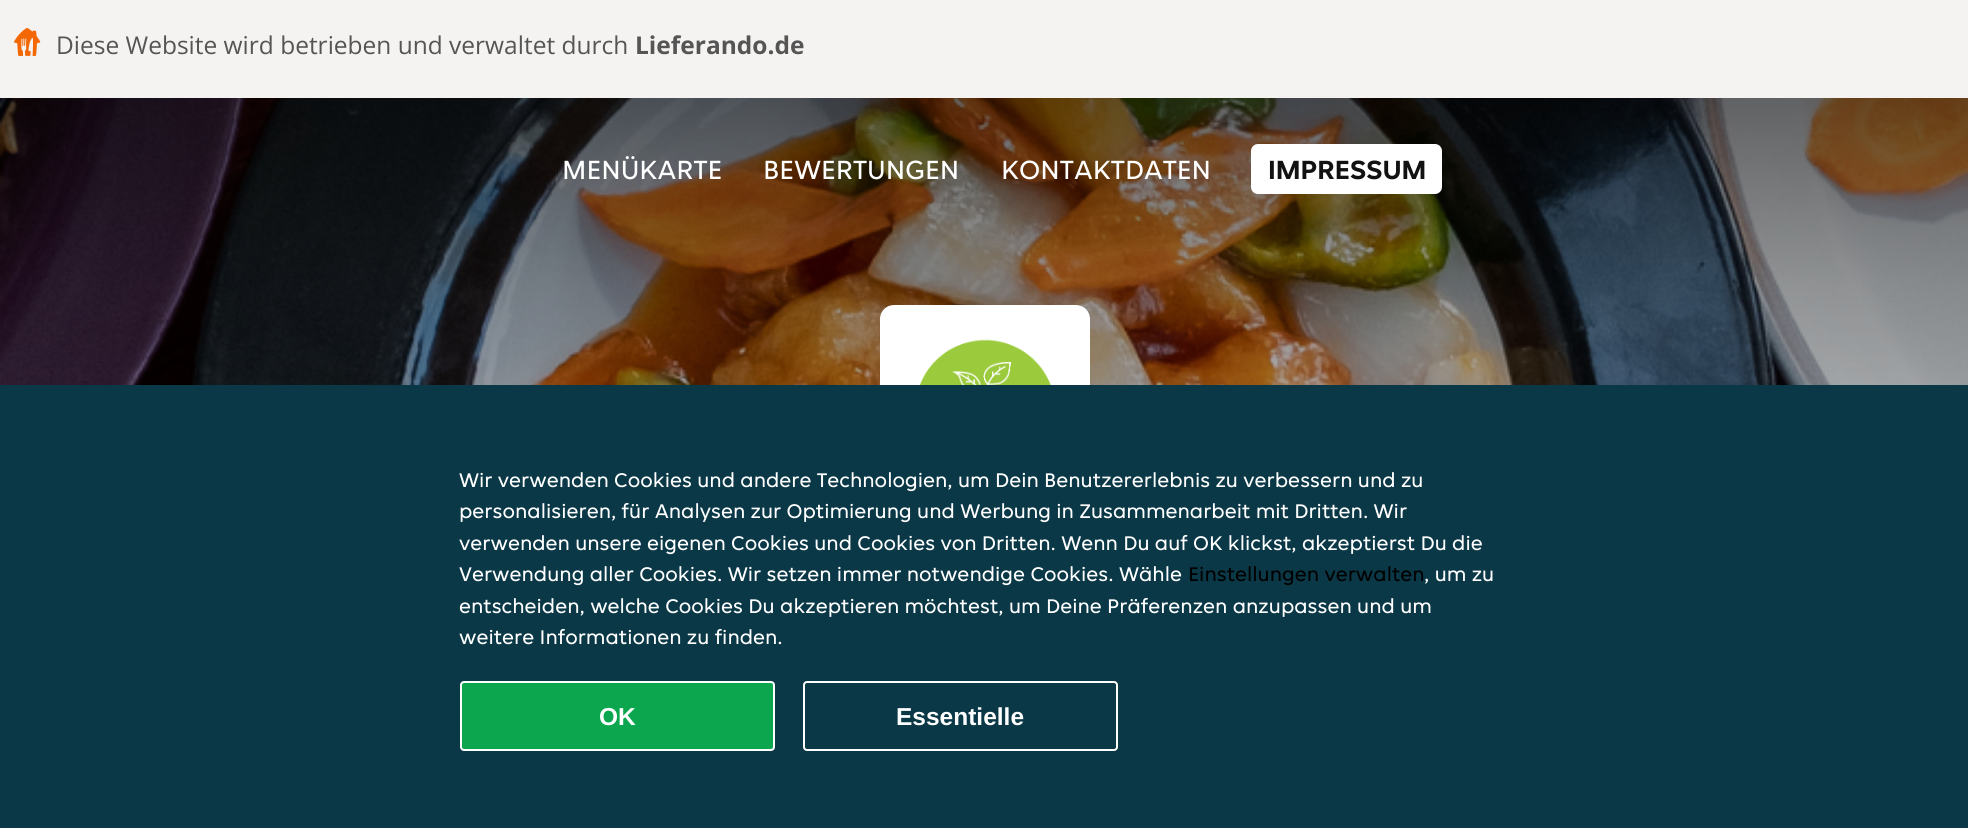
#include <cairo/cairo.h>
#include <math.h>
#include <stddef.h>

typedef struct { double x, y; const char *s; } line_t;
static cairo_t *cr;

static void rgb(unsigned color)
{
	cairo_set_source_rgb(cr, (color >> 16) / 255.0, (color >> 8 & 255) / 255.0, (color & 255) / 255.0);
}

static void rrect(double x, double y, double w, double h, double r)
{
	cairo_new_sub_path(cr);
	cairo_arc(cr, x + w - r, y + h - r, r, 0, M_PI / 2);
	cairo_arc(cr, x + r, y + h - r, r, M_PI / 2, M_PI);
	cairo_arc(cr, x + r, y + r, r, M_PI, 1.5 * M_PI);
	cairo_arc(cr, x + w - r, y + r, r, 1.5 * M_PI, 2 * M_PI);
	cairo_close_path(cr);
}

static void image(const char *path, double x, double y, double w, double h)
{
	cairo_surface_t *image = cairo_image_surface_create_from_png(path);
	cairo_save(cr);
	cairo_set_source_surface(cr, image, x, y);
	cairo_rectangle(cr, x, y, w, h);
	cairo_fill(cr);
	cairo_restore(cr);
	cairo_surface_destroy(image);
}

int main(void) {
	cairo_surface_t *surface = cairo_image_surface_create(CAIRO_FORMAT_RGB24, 1968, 828);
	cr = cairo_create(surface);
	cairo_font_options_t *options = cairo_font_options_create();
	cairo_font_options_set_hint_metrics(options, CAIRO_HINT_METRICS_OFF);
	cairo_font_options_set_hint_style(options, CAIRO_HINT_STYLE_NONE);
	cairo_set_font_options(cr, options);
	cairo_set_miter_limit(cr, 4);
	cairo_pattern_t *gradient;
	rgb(0xffffff);
	cairo_paint(cr);
	rgb(0xf5f3f1);
	cairo_rectangle(cr, 0, 0, 1968, 98);
	cairo_fill(cr);
	image("img/1.png", 14, 28, 27, 28);
	image("img/2.png", 0, 98, 1968, 287);
	gradient = cairo_pattern_create_linear(984, 0, 984, 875);
	cairo_pattern_add_color_stop_rgba(gradient, 0, 0, 0, 0, 0.7);
	cairo_pattern_add_color_stop_rgba(gradient, 0.33, 0, 0, 0, 0.4);
	cairo_pattern_add_color_stop_rgba(gradient, 0.67, 0, 0, 0, 0.2);
	cairo_pattern_add_color_stop_rgba(gradient, 1, 0, 0, 0, 0);
	cairo_set_source(cr, gradient);
	cairo_pattern_destroy(gradient);
	cairo_rectangle(cr, 0, 98, 1968, 287);
	cairo_fill(cr);
	rgb(0xffffff);
	rrect(1251, 144, 191, 50, 7);
	cairo_fill(cr);
	rrect(880, 305, 210, 210, 14);
	cairo_fill(cr);
	image("img/3.png", 919, 339, 133, 46);
	rgb(0x0a3847);
	cairo_rectangle(cr, 0, 385, 1968, 443);
	cairo_fill(cr);
	rgb(0x0ca64f);
	rrect(461, 682, 313, 68, 3);
	cairo_fill_preserve(cr);
	rgb(0xffffff);
	cairo_stroke(cr);
	rrect(804, 682, 313, 68, 3);
	cairo_stroke(cr);
	cairo_select_font_face(cr, "Open Sans", CAIRO_FONT_SLANT_NORMAL, CAIRO_FONT_WEIGHT_NORMAL);
	cairo_set_font_size(cr, 24.5);
	rgb(0x555555);
	cairo_move_to(cr, 56, 54);
	cairo_show_text(cr, "Diese Website wird betrieben und verwaltet durch");
	cairo_select_font_face(cr, "Open Sans", CAIRO_FONT_SLANT_NORMAL, CAIRO_FONT_WEIGHT_BOLD);
	cairo_move_to(cr, 635, 54);
	cairo_show_text(cr, "Lieferando.de");
	cairo_select_font_face(cr, "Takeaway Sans", CAIRO_FONT_SLANT_NORMAL, CAIRO_FONT_WEIGHT_NORMAL);
	cairo_set_font_size(cr, 28);
	rgb(0xffffff);
	{
		static const line_t items[] = {
			{562, 179, "MENÜKARTE"},
			{763, 179, "BEWERTUNGEN"},
			{1001, 179, "KONTAKTDATEN"},
		};
		for (size_t i = 0; i < sizeof items / sizeof *items; i++) {
			cairo_move_to(cr, items[i].x, items[i].y);
			cairo_show_text(cr, items[i].s);
		}
	}
	cairo_select_font_face(cr, "Takeaway Sans", CAIRO_FONT_SLANT_NORMAL, CAIRO_FONT_WEIGHT_BOLD);
	rgb(0x121212);
	cairo_move_to(cr, 1268, 179);
	cairo_show_text(cr, "IMPRESSUM");
	cairo_select_font_face(cr, "Takeaway Sans", CAIRO_FONT_SLANT_NORMAL, CAIRO_FONT_WEIGHT_NORMAL);
	cairo_set_font_size(cr, 21);
	rgb(0xffffff);
	{
		static const line_t items[] = {
			{459, 487, "Wir verwenden Cookies und andere Technologien, um Dein Benutzererlebnis zu verbessern und zu"},
			{459, 518, "personalisieren, für Analysen zur Optimierung und Werbung in Zusammenarbeit mit Dritten. Wir"},
			{459, 550, "verwenden unsere eigenen Cookies und Cookies von Dritten. Wenn Du auf OK klickst, akzeptierst Du die"},
			{459, 581, "Verwendung aller Cookies. Wir setzen immer notwendige Cookies. Wähle"},
		};
		for (size_t i = 0; i < sizeof items / sizeof *items; i++) {
			cairo_move_to(cr, items[i].x, items[i].y);
			cairo_show_text(cr, items[i].s);
		}
	}
	rgb(0x000000);
	cairo_move_to(cr, 1188, 581);
	cairo_show_text(cr, "Einstellungen verwalten");
	rgb(0xffffff);
	{
		static const line_t items[] = {
			{1424, 581, ", um zu"},
			{459, 613, "entscheiden, welche Cookies Du akzeptieren möchtest, um Deine Präferenzen anzupassen und um"},
			{459, 644, "weitere Informationen zu finden."},
		};
		for (size_t i = 0; i < sizeof items / sizeof *items; i++) {
			cairo_move_to(cr, items[i].x, items[i].y);
			cairo_show_text(cr, items[i].s);
		}
	}
	cairo_select_font_face(cr, "Liberation Sans", CAIRO_FONT_SLANT_NORMAL, CAIRO_FONT_WEIGHT_BOLD);
	cairo_set_font_size(cr, 24.5);
	cairo_move_to(cr, 599, 725);
	cairo_show_text(cr, "OK");
	cairo_move_to(cr, 896, 725);
	cairo_show_text(cr, "Essentielle");
	cairo_surface_write_to_png(surface, "page.png");
	cairo_font_options_destroy(options);
	cairo_destroy(cr);
	cairo_surface_destroy(surface);
	return 0;
}
